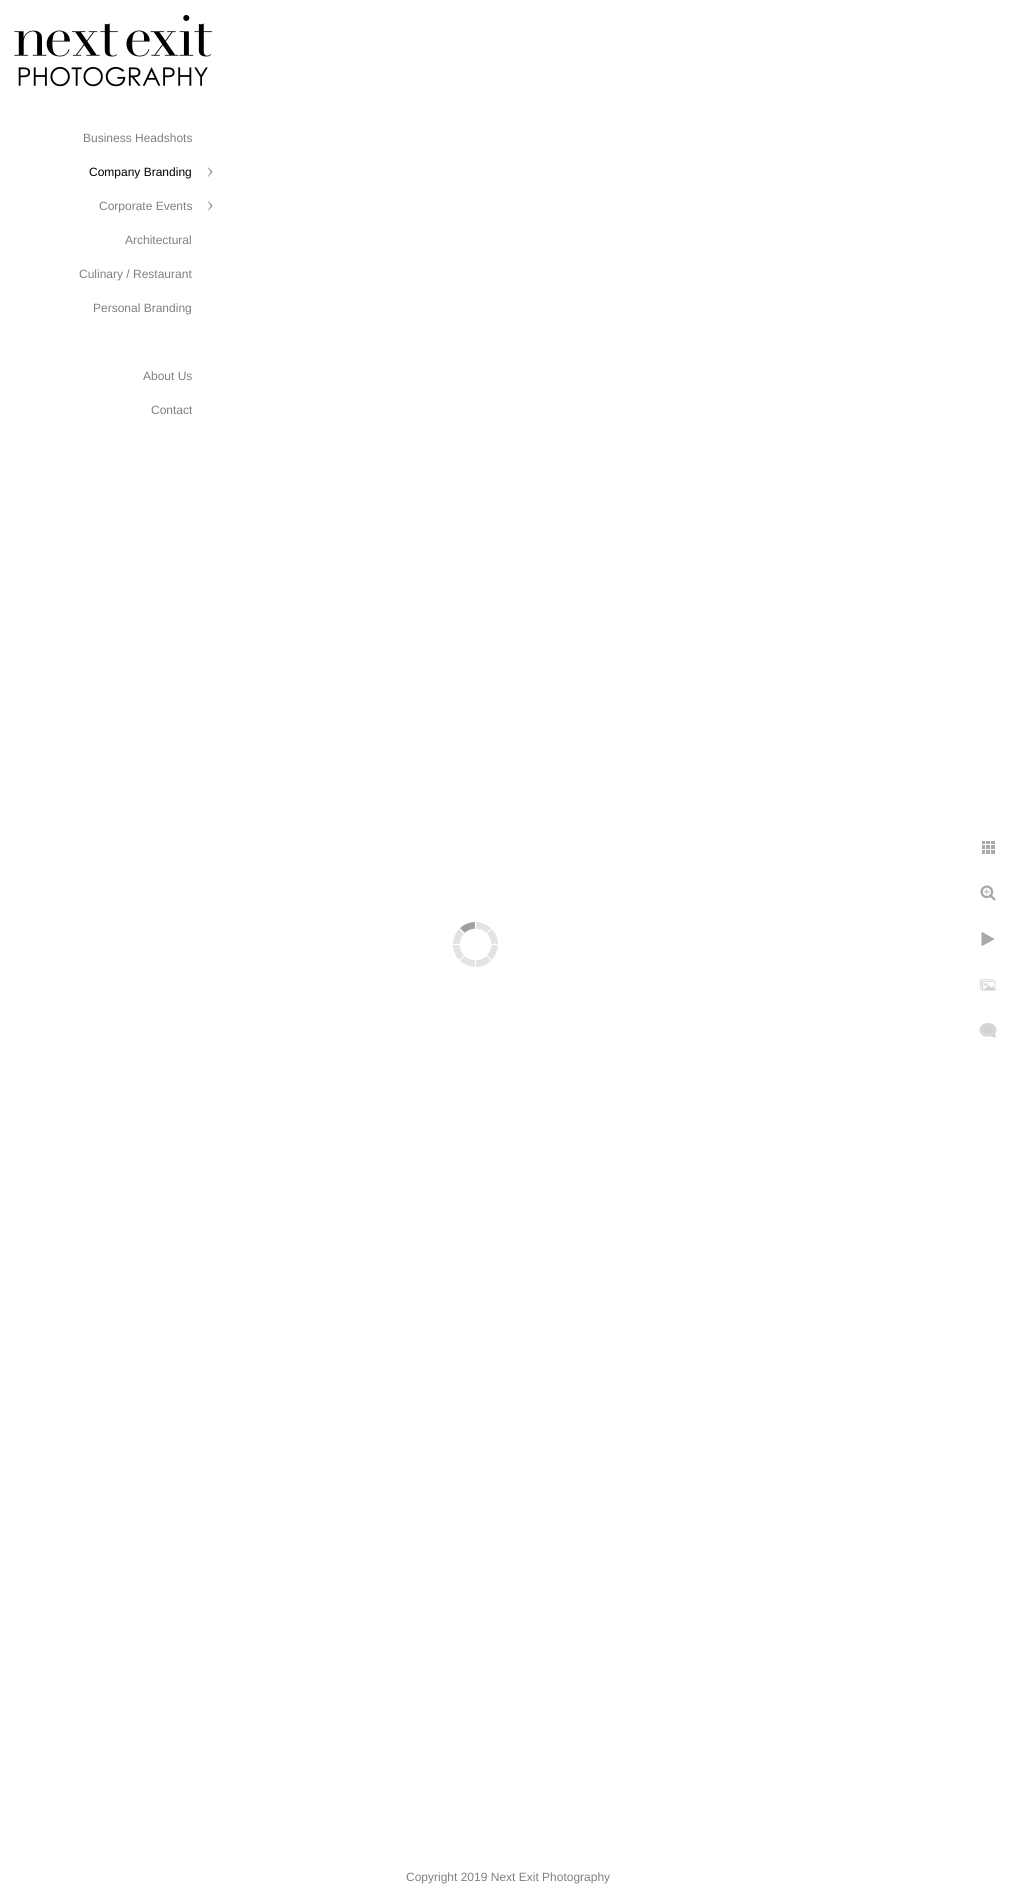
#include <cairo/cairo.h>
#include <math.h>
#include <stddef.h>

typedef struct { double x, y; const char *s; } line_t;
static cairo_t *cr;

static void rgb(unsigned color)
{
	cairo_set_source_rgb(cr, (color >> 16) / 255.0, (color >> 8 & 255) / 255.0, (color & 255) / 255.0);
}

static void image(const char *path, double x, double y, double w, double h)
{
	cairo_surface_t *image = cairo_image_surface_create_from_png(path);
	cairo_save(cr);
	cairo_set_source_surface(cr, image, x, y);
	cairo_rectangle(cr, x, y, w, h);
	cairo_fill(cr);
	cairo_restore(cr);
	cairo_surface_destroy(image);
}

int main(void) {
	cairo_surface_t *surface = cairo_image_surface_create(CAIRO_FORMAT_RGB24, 1016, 1897);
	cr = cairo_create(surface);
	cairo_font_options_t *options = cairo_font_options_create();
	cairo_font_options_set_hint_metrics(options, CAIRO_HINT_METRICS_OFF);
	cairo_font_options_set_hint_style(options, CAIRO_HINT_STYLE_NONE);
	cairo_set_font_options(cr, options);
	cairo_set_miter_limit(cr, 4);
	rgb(0xffffff);
	cairo_paint(cr);
	image("img/1.png", 14, 15, 198, 72);
	image("img/2.png", 207, 167, 6, 10);
	image("img/2.png", 207, 201, 6, 10);
	image("img/3.png", 453, 922, 45, 45);
	image("img/4.png", 982, 841, 13, 13);
	image("img/5.png", 980, 885, 16, 16);
	image("img/6.png", 981, 932, 14, 14);
	image("img/7.png", 979, 979, 17, 12);
	image("img/8.png", 979, 1023, 18, 15);
	cairo_select_font_face(cr, "Liberation Sans", CAIRO_FONT_SLANT_NORMAL, CAIRO_FONT_WEIGHT_NORMAL);
	cairo_set_font_size(cr, 12);
	rgb(0x808080);
	cairo_move_to(cr, 83, 142);
	cairo_show_text(cr, "Business Headshots");
	rgb(0x000000);
	cairo_move_to(cr, 89, 176);
	cairo_show_text(cr, "Company Branding");
	rgb(0x808080);
	{
		static const line_t items[] = {
			{99, 210, "Corporate Events"},
			{125, 244, "Architectural"},
			{79, 278, "Culinary / Restaurant"},
			{93, 312, "Personal Branding"},
			{143, 380, "About Us"},
			{151, 414, "Contact"},
			{406, 1881, "Copyright 2019 Next Exit Photography"},
		};
		for (size_t i = 0; i < sizeof items / sizeof *items; i++) {
			cairo_move_to(cr, items[i].x, items[i].y);
			cairo_show_text(cr, items[i].s);
		}
	}
	cairo_surface_write_to_png(surface, "page.png");
	cairo_font_options_destroy(options);
	cairo_destroy(cr);
	cairo_surface_destroy(surface);
	return 0;
}
